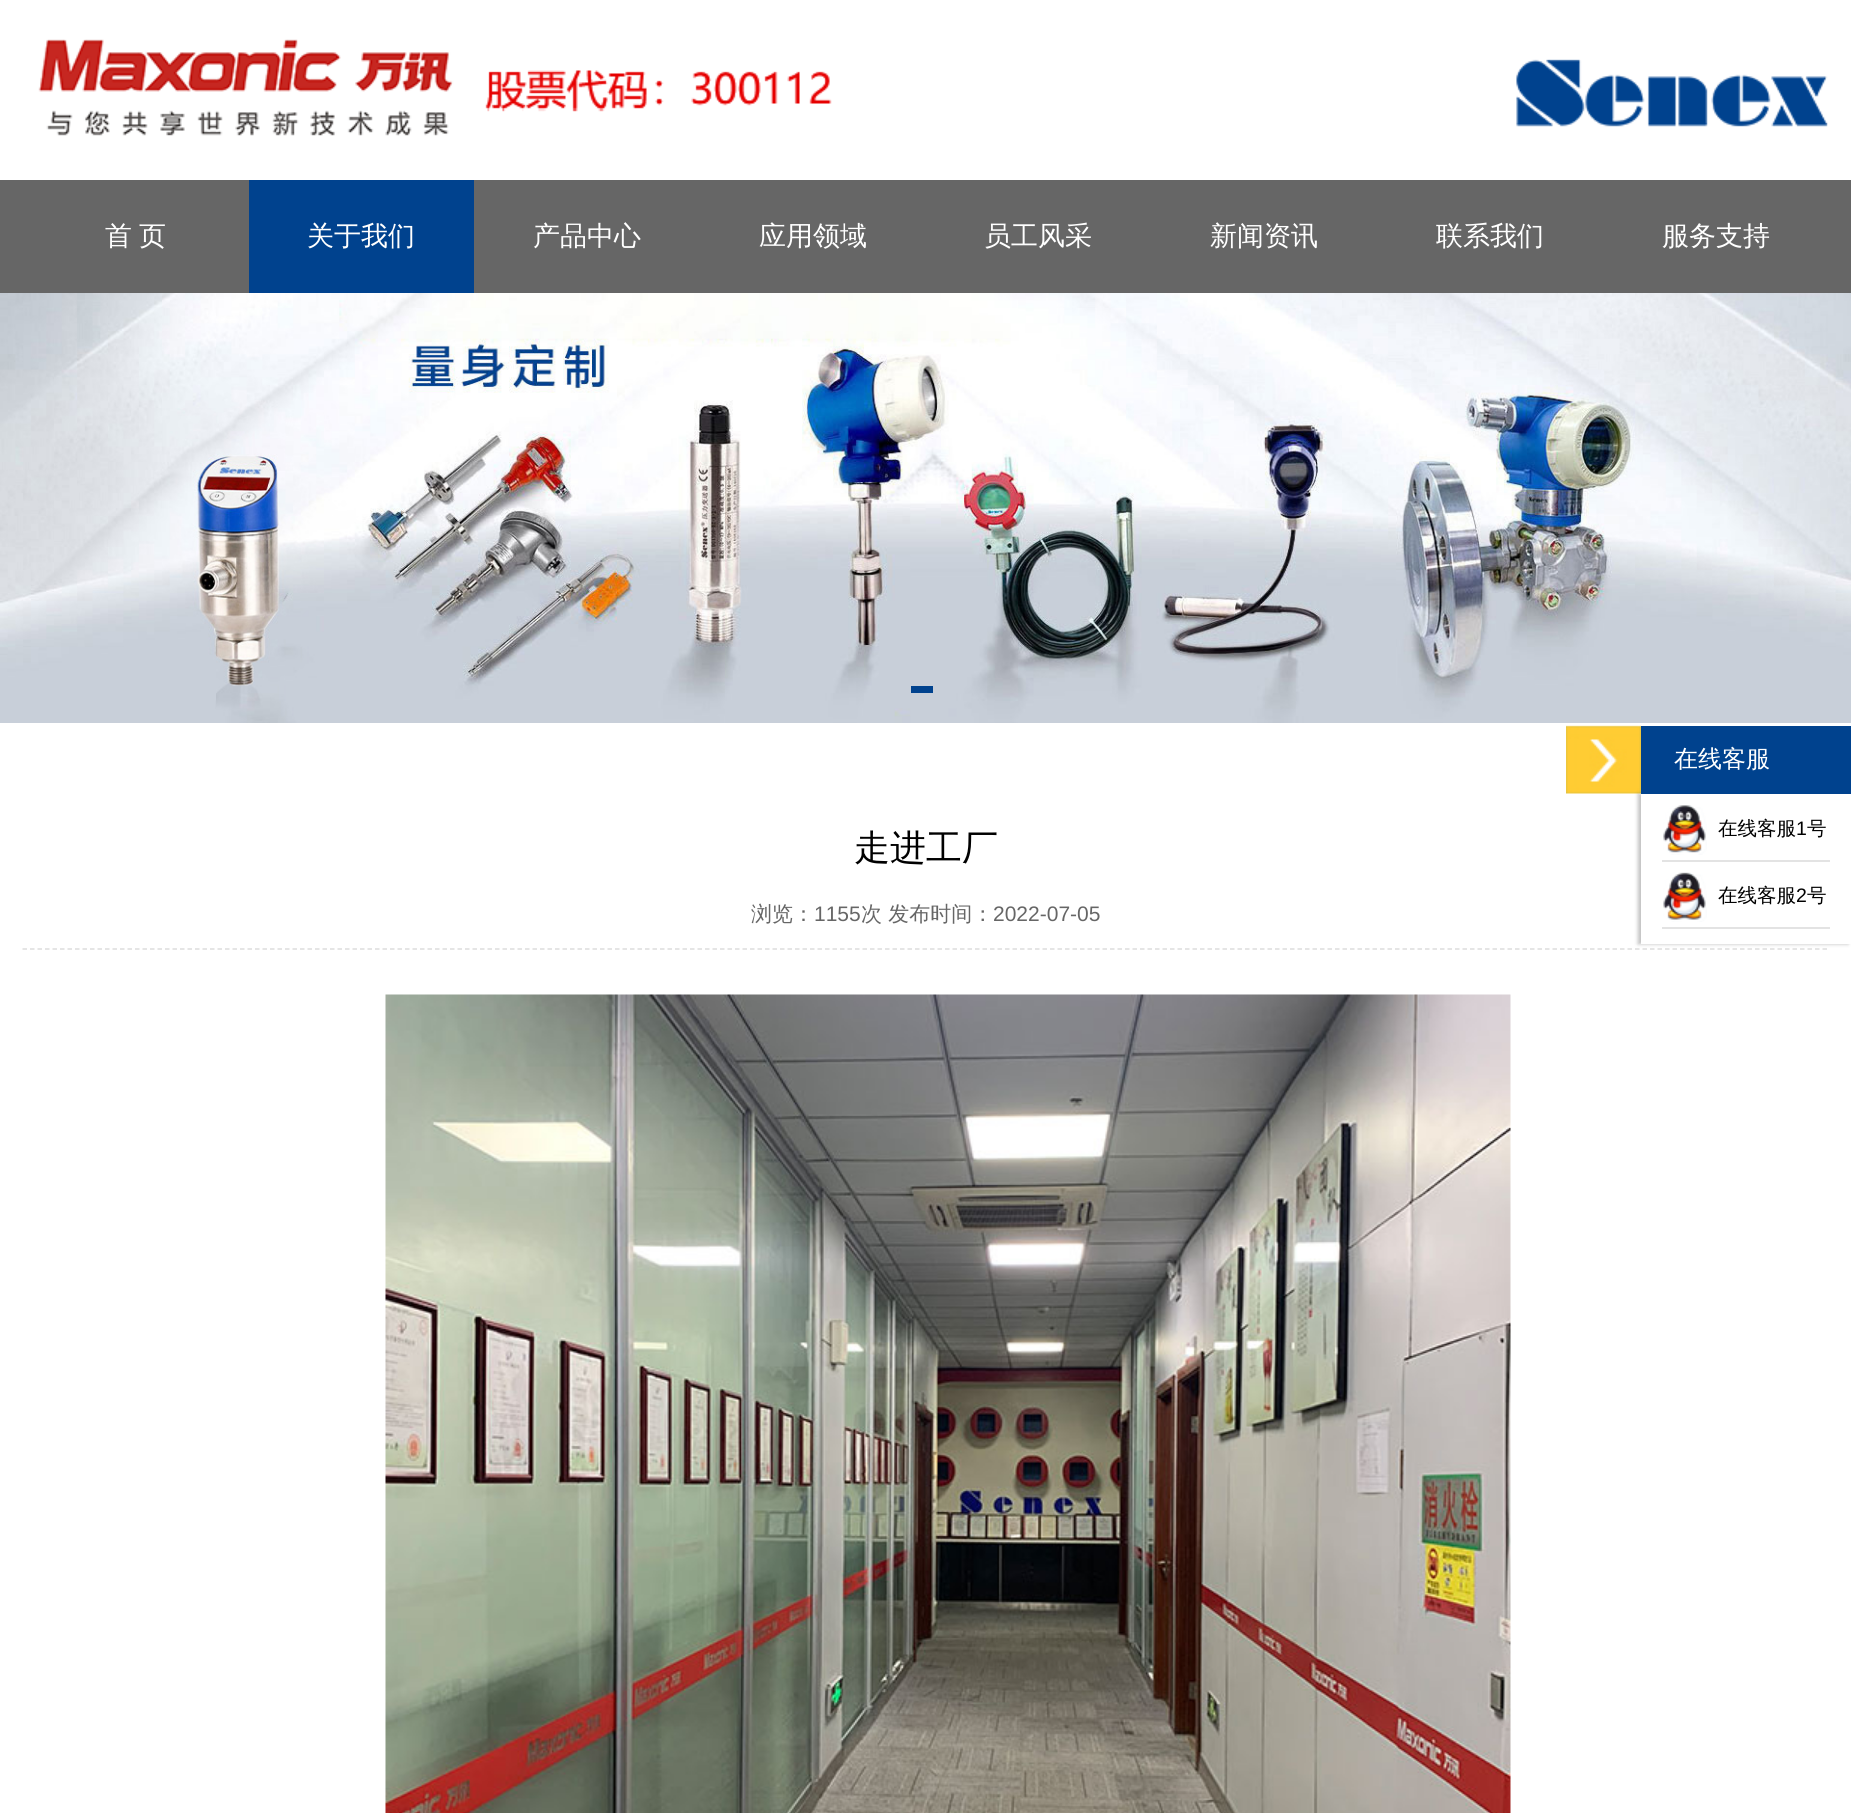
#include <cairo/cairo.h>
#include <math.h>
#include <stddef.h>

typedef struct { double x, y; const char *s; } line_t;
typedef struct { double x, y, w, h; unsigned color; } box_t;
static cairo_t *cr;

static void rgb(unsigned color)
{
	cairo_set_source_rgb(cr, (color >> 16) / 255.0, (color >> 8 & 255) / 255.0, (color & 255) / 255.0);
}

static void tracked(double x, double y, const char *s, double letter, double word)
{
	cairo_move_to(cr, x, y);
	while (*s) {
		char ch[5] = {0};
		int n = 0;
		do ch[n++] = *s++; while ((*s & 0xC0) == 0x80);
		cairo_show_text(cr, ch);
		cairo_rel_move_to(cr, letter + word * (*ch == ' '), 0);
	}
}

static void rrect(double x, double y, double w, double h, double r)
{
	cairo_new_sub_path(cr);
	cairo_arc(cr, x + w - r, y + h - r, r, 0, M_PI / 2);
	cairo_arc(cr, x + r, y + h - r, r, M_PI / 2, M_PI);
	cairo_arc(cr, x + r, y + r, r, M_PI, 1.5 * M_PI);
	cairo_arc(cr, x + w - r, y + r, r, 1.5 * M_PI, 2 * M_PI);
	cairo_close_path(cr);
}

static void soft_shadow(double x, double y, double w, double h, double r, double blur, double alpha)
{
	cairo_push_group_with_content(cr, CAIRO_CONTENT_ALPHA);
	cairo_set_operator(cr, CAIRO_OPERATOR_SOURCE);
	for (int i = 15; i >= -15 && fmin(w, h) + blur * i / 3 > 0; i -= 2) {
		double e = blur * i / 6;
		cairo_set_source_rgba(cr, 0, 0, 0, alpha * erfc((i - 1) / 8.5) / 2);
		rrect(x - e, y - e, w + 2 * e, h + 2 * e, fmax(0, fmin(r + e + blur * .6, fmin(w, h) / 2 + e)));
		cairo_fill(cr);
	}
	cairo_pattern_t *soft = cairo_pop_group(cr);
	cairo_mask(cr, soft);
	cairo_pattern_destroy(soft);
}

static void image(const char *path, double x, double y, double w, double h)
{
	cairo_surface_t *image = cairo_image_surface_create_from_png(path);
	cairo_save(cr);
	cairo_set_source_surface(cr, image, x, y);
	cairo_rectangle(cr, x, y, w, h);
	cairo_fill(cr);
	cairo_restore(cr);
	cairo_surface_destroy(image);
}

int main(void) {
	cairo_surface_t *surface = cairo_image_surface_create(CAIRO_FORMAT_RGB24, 1851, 1813);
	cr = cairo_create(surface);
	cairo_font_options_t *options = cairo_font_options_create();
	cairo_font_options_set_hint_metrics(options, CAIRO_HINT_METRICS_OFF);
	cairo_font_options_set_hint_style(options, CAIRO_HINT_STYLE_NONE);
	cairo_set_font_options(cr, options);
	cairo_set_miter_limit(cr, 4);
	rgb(0xffffff);
	cairo_paint(cr);
	image("img/1.png", 38, 39, 794, 97);
	image("img/2.png", 1516, 59, 312, 68);
	rgb(0x666666);
	cairo_rectangle(cr, 0, 180, 1851, 113);
	cairo_fill(cr);
	rgb(0x00428e);
	cairo_rectangle(cr, 249, 180, 225, 113);
	cairo_fill(cr);
	image("img/3.png", 0, 293, 1851, 430);
	cairo_rectangle(cr, 911, 686, 22, 7);
	cairo_fill(cr);
	cairo_new_path(cr);
	cairo_move_to(cr, 22.5, 949);
	cairo_line_to(cr, 1828.5, 949);
	rgb(0xdddddd);
	cairo_set_line_width(cr, 1.5);
	cairo_set_dash(cr, (double[]){4.5, 3}, 2, 0);
	cairo_stroke(cr);
	image("img/4.png", 385, 994, 1126, 819);
	image("img/5.png", 1566, 725, 75, 69);
	rgb(0x000000);
	soft_shadow(1638, 794, 210, 150, 0, 2, 0.25);
	{
		static const box_t items[] = {
			{1641, 726, 210, 68, 0x00428e},
			{1641, 794, 210, 150, 0xffffff},
			{1662, 860, 168, 2, 0xe3e3e3},
		};
		for (size_t i = 0; i < sizeof items / sizeof *items; i++) {
			rgb(items[i].color);
			cairo_rectangle(cr, items[i].x, items[i].y, items[i].w, items[i].h);
			cairo_fill(cr);
		}
	}
	image("img/6.png", 1663, 805, 44, 50);
	cairo_rectangle(cr, 1662, 927, 168, 2);
	cairo_fill(cr);
	image("img/7.png", 1663, 872, 44, 50);
	cairo_select_font_face(cr, "WenQuanYi Zen Hei Medium", CAIRO_FONT_SLANT_NORMAL, CAIRO_FONT_WEIGHT_NORMAL);
	cairo_set_font_size(cr, 27);
	rgb(0xffffff);
	tracked(105, 245, "首 页", 0, -1);
	{
		static const line_t items[] = {
			{307, 245, "关于我们"},
			{533, 245, "产品中心"},
			{759, 245, "应用领域"},
			{984, 245, "员工风采"},
			{1210, 245, "新闻资讯"},
			{1436, 245, "联系我们"},
			{1662, 245, "服务支持"},
		};
		for (size_t i = 0; i < sizeof items / sizeof *items; i++) {
			cairo_move_to(cr, items[i].x, items[i].y);
			cairo_show_text(cr, items[i].s);
		}
	}
	cairo_set_font_size(cr, 36);
	rgb(0x000000);
	cairo_move_to(cr, 854, 860);
	cairo_show_text(cr, "走进工厂");
	cairo_set_font_size(cr, 21);
	rgb(0x666666);
	cairo_move_to(cr, 751, 921);
	cairo_show_text(cr, "浏览：");
	cairo_select_font_face(cr, "Liberation Sans", CAIRO_FONT_SLANT_NORMAL, CAIRO_FONT_WEIGHT_NORMAL);
	cairo_move_to(cr, 814, 921);
	cairo_show_text(cr, "1155");
	cairo_select_font_face(cr, "WenQuanYi Zen Hei Medium", CAIRO_FONT_SLANT_NORMAL, CAIRO_FONT_WEIGHT_NORMAL);
	cairo_move_to(cr, 861, 921);
	cairo_show_text(cr, "次 发布时间：");
	cairo_select_font_face(cr, "Liberation Sans", CAIRO_FONT_SLANT_NORMAL, CAIRO_FONT_WEIGHT_NORMAL);
	cairo_move_to(cr, 993, 921);
	cairo_show_text(cr, "2022-07-05");
	cairo_select_font_face(cr, "WenQuanYi Zen Hei Medium", CAIRO_FONT_SLANT_NORMAL, CAIRO_FONT_WEIGHT_NORMAL);
	cairo_set_font_size(cr, 24);
	rgb(0xffffff);
	cairo_move_to(cr, 1674, 767);
	cairo_show_text(cr, "在线客服");
	cairo_set_font_size(cr, 19.5);
	rgb(0x000000);
	cairo_move_to(cr, 1718, 835);
	cairo_show_text(cr, "在线客服");
	cairo_select_font_face(cr, "Liberation Sans", CAIRO_FONT_SLANT_NORMAL, CAIRO_FONT_WEIGHT_NORMAL);
	cairo_move_to(cr, 1796, 835);
	cairo_show_text(cr, "1");
	cairo_select_font_face(cr, "WenQuanYi Zen Hei Medium", CAIRO_FONT_SLANT_NORMAL, CAIRO_FONT_WEIGHT_NORMAL);
	cairo_move_to(cr, 1807, 835);
	cairo_show_text(cr, "号");
	cairo_move_to(cr, 1718, 902);
	cairo_show_text(cr, "在线客服");
	cairo_select_font_face(cr, "Liberation Sans", CAIRO_FONT_SLANT_NORMAL, CAIRO_FONT_WEIGHT_NORMAL);
	cairo_move_to(cr, 1796, 902);
	cairo_show_text(cr, "2");
	cairo_select_font_face(cr, "WenQuanYi Zen Hei Medium", CAIRO_FONT_SLANT_NORMAL, CAIRO_FONT_WEIGHT_NORMAL);
	cairo_move_to(cr, 1807, 902);
	cairo_show_text(cr, "号");
	cairo_surface_write_to_png(surface, "page.png");
	cairo_font_options_destroy(options);
	cairo_destroy(cr);
	cairo_surface_destroy(surface);
	return 0;
}
